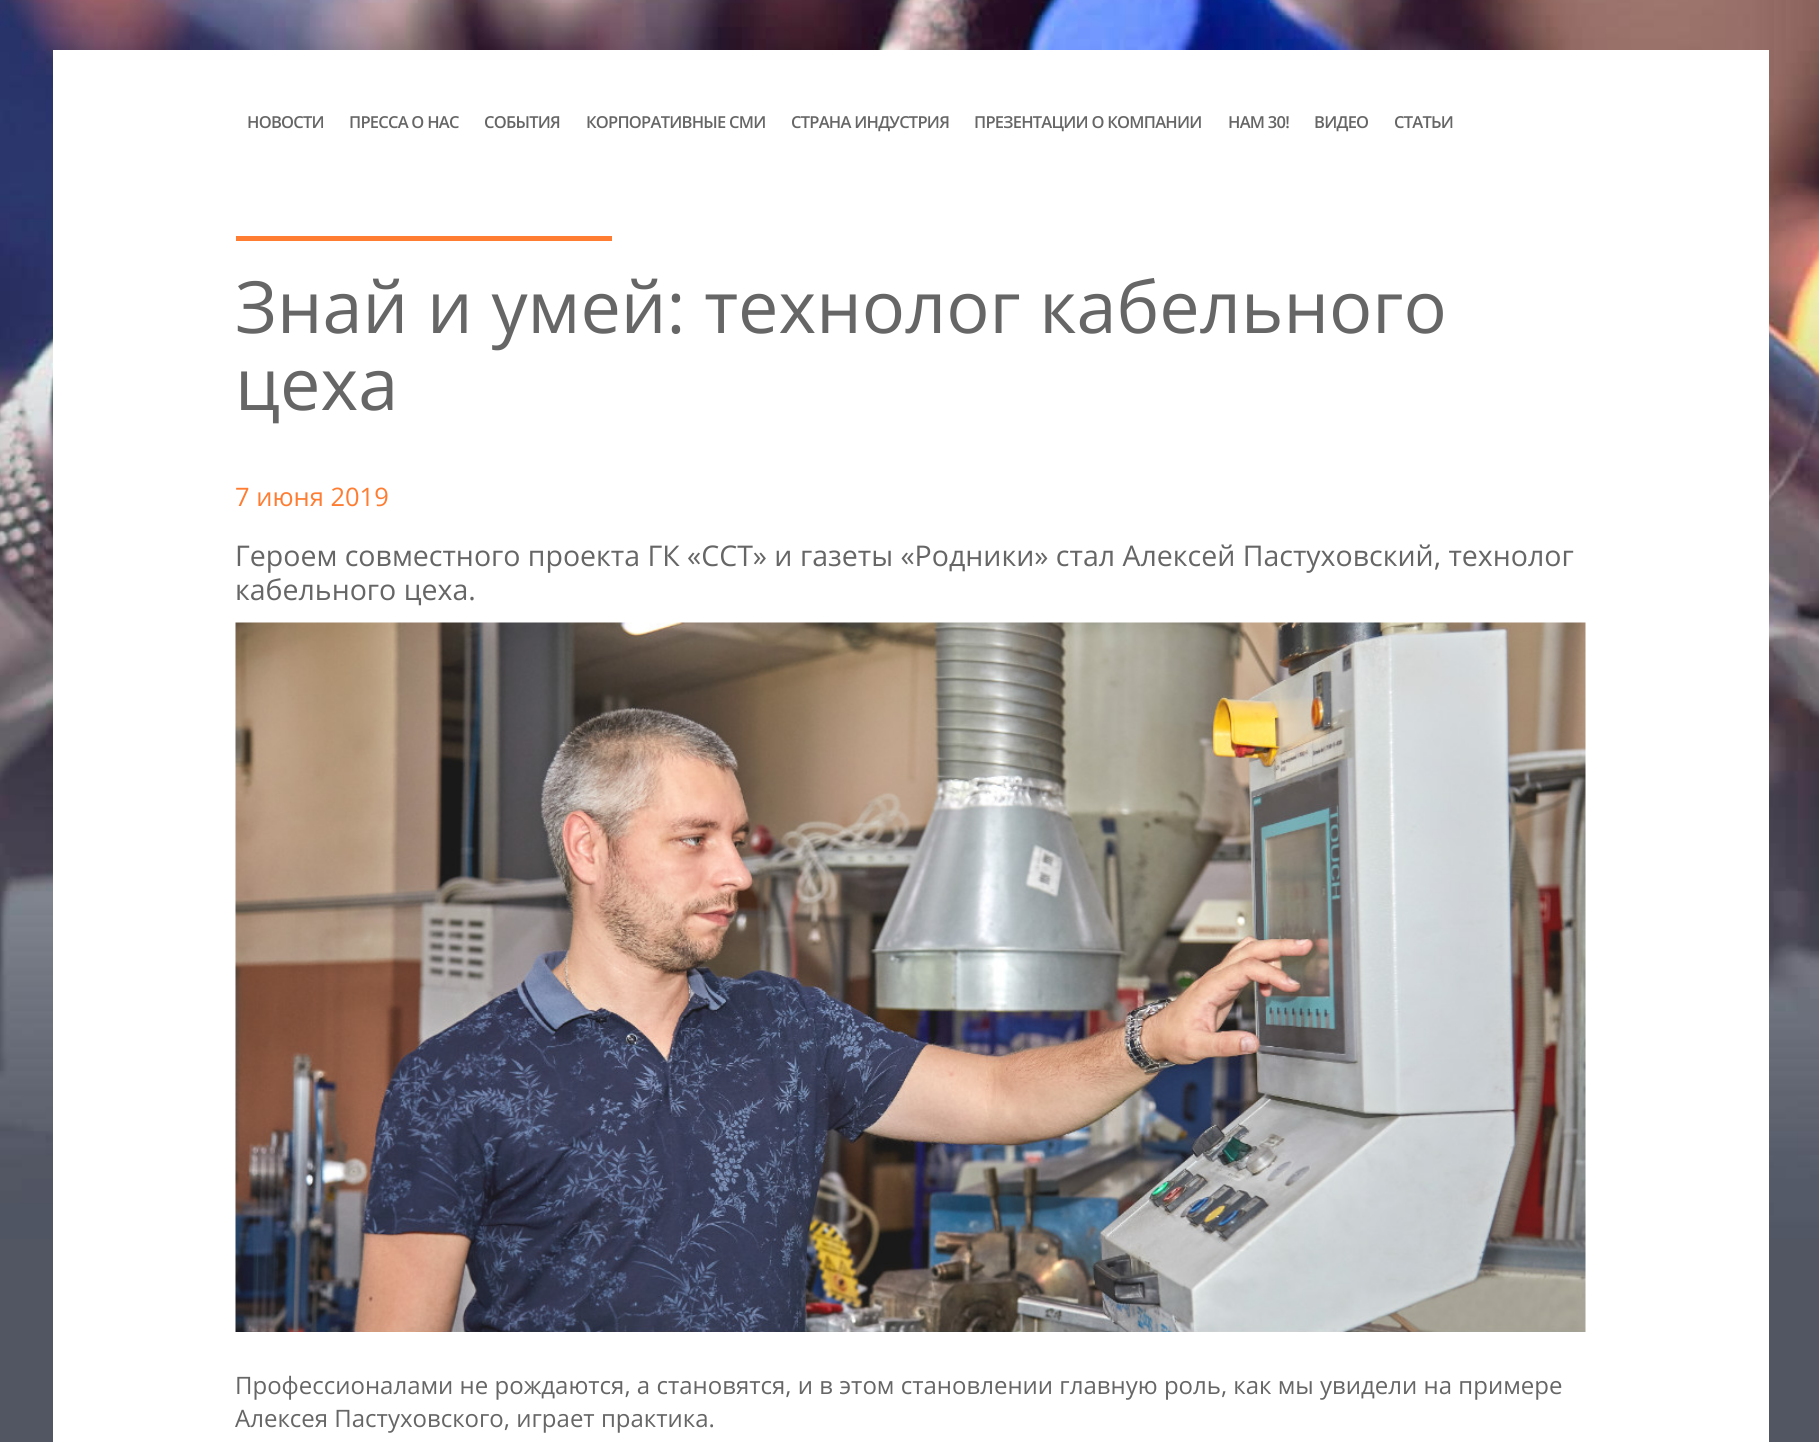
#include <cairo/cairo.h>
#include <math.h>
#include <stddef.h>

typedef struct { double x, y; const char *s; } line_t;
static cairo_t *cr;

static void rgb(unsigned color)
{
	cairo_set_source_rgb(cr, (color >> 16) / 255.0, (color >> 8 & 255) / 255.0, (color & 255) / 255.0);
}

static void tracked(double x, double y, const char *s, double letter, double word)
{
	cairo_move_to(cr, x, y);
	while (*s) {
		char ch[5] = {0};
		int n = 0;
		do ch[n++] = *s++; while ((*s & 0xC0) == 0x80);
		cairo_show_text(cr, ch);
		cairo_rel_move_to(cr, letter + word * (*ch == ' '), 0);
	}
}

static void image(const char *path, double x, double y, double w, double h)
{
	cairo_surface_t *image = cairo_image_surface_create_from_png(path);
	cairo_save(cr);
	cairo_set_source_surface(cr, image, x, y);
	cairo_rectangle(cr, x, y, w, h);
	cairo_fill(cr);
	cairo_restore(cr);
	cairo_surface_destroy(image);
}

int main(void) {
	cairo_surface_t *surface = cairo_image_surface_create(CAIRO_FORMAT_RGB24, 1819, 1442);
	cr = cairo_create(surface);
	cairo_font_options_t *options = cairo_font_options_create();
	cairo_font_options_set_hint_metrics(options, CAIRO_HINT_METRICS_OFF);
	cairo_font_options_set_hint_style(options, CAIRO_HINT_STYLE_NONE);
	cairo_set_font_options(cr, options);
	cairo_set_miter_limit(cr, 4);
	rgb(0x525663);
	cairo_paint(cr);
	image("img/1.png", 0, 0, 1819, 1239);
	rgb(0xffffff);
	cairo_rectangle(cr, 53, 50, 1716, 1392);
	cairo_fill(cr);
	rgb(0xff7d32);
	cairo_rectangle(cr, 236, 236, 376, 5);
	cairo_fill(cr);
	image("img/2.png", 235, 622, 1351, 710);
	cairo_select_font_face(cr, "Open Sans SemiBold", CAIRO_FONT_SLANT_NORMAL, CAIRO_FONT_WEIGHT_NORMAL);
	cairo_set_font_size(cr, 16.5);
	rgb(0x666666);
	{
		static const line_t items[] = {
			{247, 128, "НОВОСТИ"},
			{349, 128, "ПРЕССА О НАС"},
			{484, 128, "СОБЫТИЯ"},
			{586, 128, "КОРПОРАТИВНЫЕ СМИ"},
			{791, 128, "СТРАНА ИНДУСТРИЯ"},
			{974, 128, "ПРЕЗЕНТАЦИИ О КОМПАНИИ"},
			{1228, 128, "НАМ 30!"},
			{1314, 128, "ВИДЕО"},
			{1394, 128, "СТАТЬИ"},
		};
		for (size_t i = 0; i < sizeof items / sizeof *items; i++) {
			tracked(items[i].x, items[i].y, items[i].s, -0.75, 0);
		}
	}
	cairo_select_font_face(cr, "Open Sans", CAIRO_FONT_SLANT_NORMAL, CAIRO_FONT_WEIGHT_NORMAL);
	cairo_set_font_size(cr, 72);
	cairo_move_to(cr, 235, 333);
	cairo_show_text(cr, "Знай и умей: технолог кабельного");
	cairo_move_to(cr, 235, 410);
	cairo_show_text(cr, "цеха");
	cairo_set_font_size(cr, 25.5);
	rgb(0xff7d32);
	cairo_move_to(cr, 235, 506);
	cairo_show_text(cr, "7 июня 2019");
	cairo_set_font_size(cr, 28.5);
	rgb(0x666666);
	cairo_move_to(cr, 235, 566);
	cairo_show_text(cr, "Героем совместного проекта ГК «ССТ» и газеты «Родники» стал Алексей Пастуховский, технолог");
	cairo_move_to(cr, 235, 600);
	cairo_show_text(cr, "кабельного цеха.");
	cairo_set_font_size(cr, 24);
	cairo_move_to(cr, 235, 1394);
	cairo_show_text(cr, "Профессионалами не рождаются, а становятся, и в этом становлении главную роль, как мы увидели на примере");
	cairo_move_to(cr, 235, 1427);
	cairo_show_text(cr, "Алексея Пастуховского, играет практика.");
	cairo_surface_write_to_png(surface, "page.png");
	cairo_font_options_destroy(options);
	cairo_destroy(cr);
	cairo_surface_destroy(surface);
	return 0;
}
